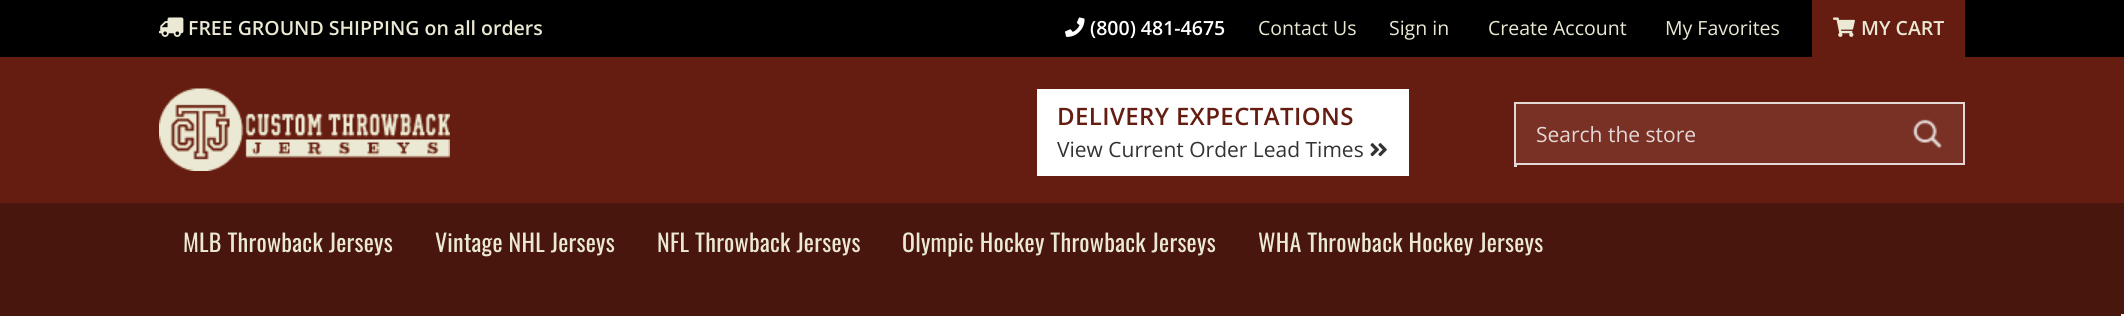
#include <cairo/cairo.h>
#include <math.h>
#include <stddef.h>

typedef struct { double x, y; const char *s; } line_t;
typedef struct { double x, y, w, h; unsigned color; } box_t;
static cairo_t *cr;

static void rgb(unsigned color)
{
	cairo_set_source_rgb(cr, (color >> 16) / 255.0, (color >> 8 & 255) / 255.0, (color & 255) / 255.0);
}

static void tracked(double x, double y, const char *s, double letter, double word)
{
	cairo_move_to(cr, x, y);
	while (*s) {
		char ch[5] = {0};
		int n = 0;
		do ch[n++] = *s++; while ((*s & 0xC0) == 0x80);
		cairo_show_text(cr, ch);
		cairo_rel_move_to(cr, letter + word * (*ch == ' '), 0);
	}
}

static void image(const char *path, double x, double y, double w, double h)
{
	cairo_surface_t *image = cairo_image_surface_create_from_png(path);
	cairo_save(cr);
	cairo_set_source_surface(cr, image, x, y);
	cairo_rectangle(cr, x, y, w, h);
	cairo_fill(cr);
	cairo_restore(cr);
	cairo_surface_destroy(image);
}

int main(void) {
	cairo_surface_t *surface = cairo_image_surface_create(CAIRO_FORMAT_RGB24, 2124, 316);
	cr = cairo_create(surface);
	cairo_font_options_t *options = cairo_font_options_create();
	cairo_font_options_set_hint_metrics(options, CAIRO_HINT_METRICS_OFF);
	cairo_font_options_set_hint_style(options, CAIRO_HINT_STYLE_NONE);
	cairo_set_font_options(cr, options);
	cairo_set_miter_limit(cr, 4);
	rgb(0x651d11);
	cairo_paint(cr);
	rgb(0x000000);
	cairo_rectangle(cr, 0, 0, 2124, 57);
	cairo_fill(cr);
	image("img/1.png", 159, 17, 25, 20);
	image("img/2.png", 1065, 17, 20, 20);
	rgb(0x651d11);
	cairo_rectangle(cr, 1812, 0, 153, 57);
	cairo_fill(cr);
	image("img/3.png", 1833, 17, 22, 20);
	image("img/4.png", 159, 88, 291, 83);
	rgb(0xffffff);
	cairo_rectangle(cr, 1037, 89, 372, 87);
	cairo_fill(cr);
	image("img/5.png", 1370, 143, 17, 14);
	rgb(0x7a3125);
	cairo_rectangle(cr, 1516, 104, 447, 59);
	cairo_fill(cr);
	image("img/6.png", 1912, 119, 30, 30);
	cairo_rectangle(cr, 1515, 103, 449, 61);
	rgb(0xe4d8d6);
	cairo_stroke(cr);
	{
		static const box_t items[] = {
			{1514, 165, 3, 2, 0xdddddd},
			{0, 203, 2124, 113, 0x48160d},
			{2121, 314, 3, 2, 0xf5f5f5},
		};
		for (size_t i = 0; i < sizeof items / sizeof *items; i++) {
			rgb(items[i].color);
			cairo_rectangle(cr, items[i].x, items[i].y, items[i].w, items[i].h);
			cairo_fill(cr);
		}
	}
	cairo_select_font_face(cr, "Open Sans SemiBold", CAIRO_FONT_SLANT_NORMAL, CAIRO_FONT_WEIGHT_NORMAL);
	cairo_set_font_size(cr, 19.5);
	rgb(0xebe9d3);
	cairo_move_to(cr, 188, 35);
	cairo_show_text(cr, "FREE GROUND SHIPPING on all orders");
	rgb(0xffffff);
	cairo_move_to(cr, 1090, 35);
	cairo_show_text(cr, "(800) 481-4675");
	cairo_select_font_face(cr, "Open Sans", CAIRO_FONT_SLANT_NORMAL, CAIRO_FONT_WEIGHT_NORMAL);
	rgb(0xebe9d3);
	{
		static const line_t items[] = {
			{1258, 35, "Contact Us"},
			{1389, 35, "Sign in"},
			{1488, 35, "Create Account"},
			{1665, 35, "My Favorites"},
		};
		for (size_t i = 0; i < sizeof items / sizeof *items; i++) {
			cairo_move_to(cr, items[i].x, items[i].y);
			cairo_show_text(cr, items[i].s);
		}
	}
	cairo_select_font_face(cr, "Open Sans SemiBold", CAIRO_FONT_SLANT_NORMAL, CAIRO_FONT_WEIGHT_NORMAL);
	cairo_move_to(cr, 1861, 35);
	cairo_show_text(cr, "MY CART");
	cairo_set_font_size(cr, 24);
	rgb(0x651d11);
	tracked(1057, 125, "DELIVERY EXPECTATIONS", 0.4, 0);
	cairo_select_font_face(cr, "Open Sans", CAIRO_FONT_SLANT_NORMAL, CAIRO_FONT_WEIGHT_NORMAL);
	cairo_set_font_size(cr, 21);
	rgb(0x333333);
	cairo_move_to(cr, 1057, 157);
	cairo_show_text(cr, "View Current Order Lead Times");
	rgb(0xe4d8d6);
	cairo_move_to(cr, 1536, 142);
	cairo_show_text(cr, "Search the store");
	cairo_select_font_face(cr, "Oswald", CAIRO_FONT_SLANT_NORMAL, CAIRO_FONT_WEIGHT_NORMAL);
	cairo_set_font_size(cr, 24);
	rgb(0xebe9d3);
	{
		static const line_t items[] = {
			{183, 252, "MLB Throwback Jerseys"},
			{435, 252, "Vintage NHL Jerseys"},
			{657, 252, "NFL Throwback Jerseys"},
			{902, 252, "Olympic Hockey Throwback Jerseys"},
			{1258, 252, "WHA Throwback Hockey Jerseys"},
		};
		for (size_t i = 0; i < sizeof items / sizeof *items; i++) {
			tracked(items[i].x, items[i].y, items[i].s, 0.25, 0);
		}
	}
	cairo_surface_write_to_png(surface, "page.png");
	cairo_font_options_destroy(options);
	cairo_destroy(cr);
	cairo_surface_destroy(surface);
	return 0;
}
